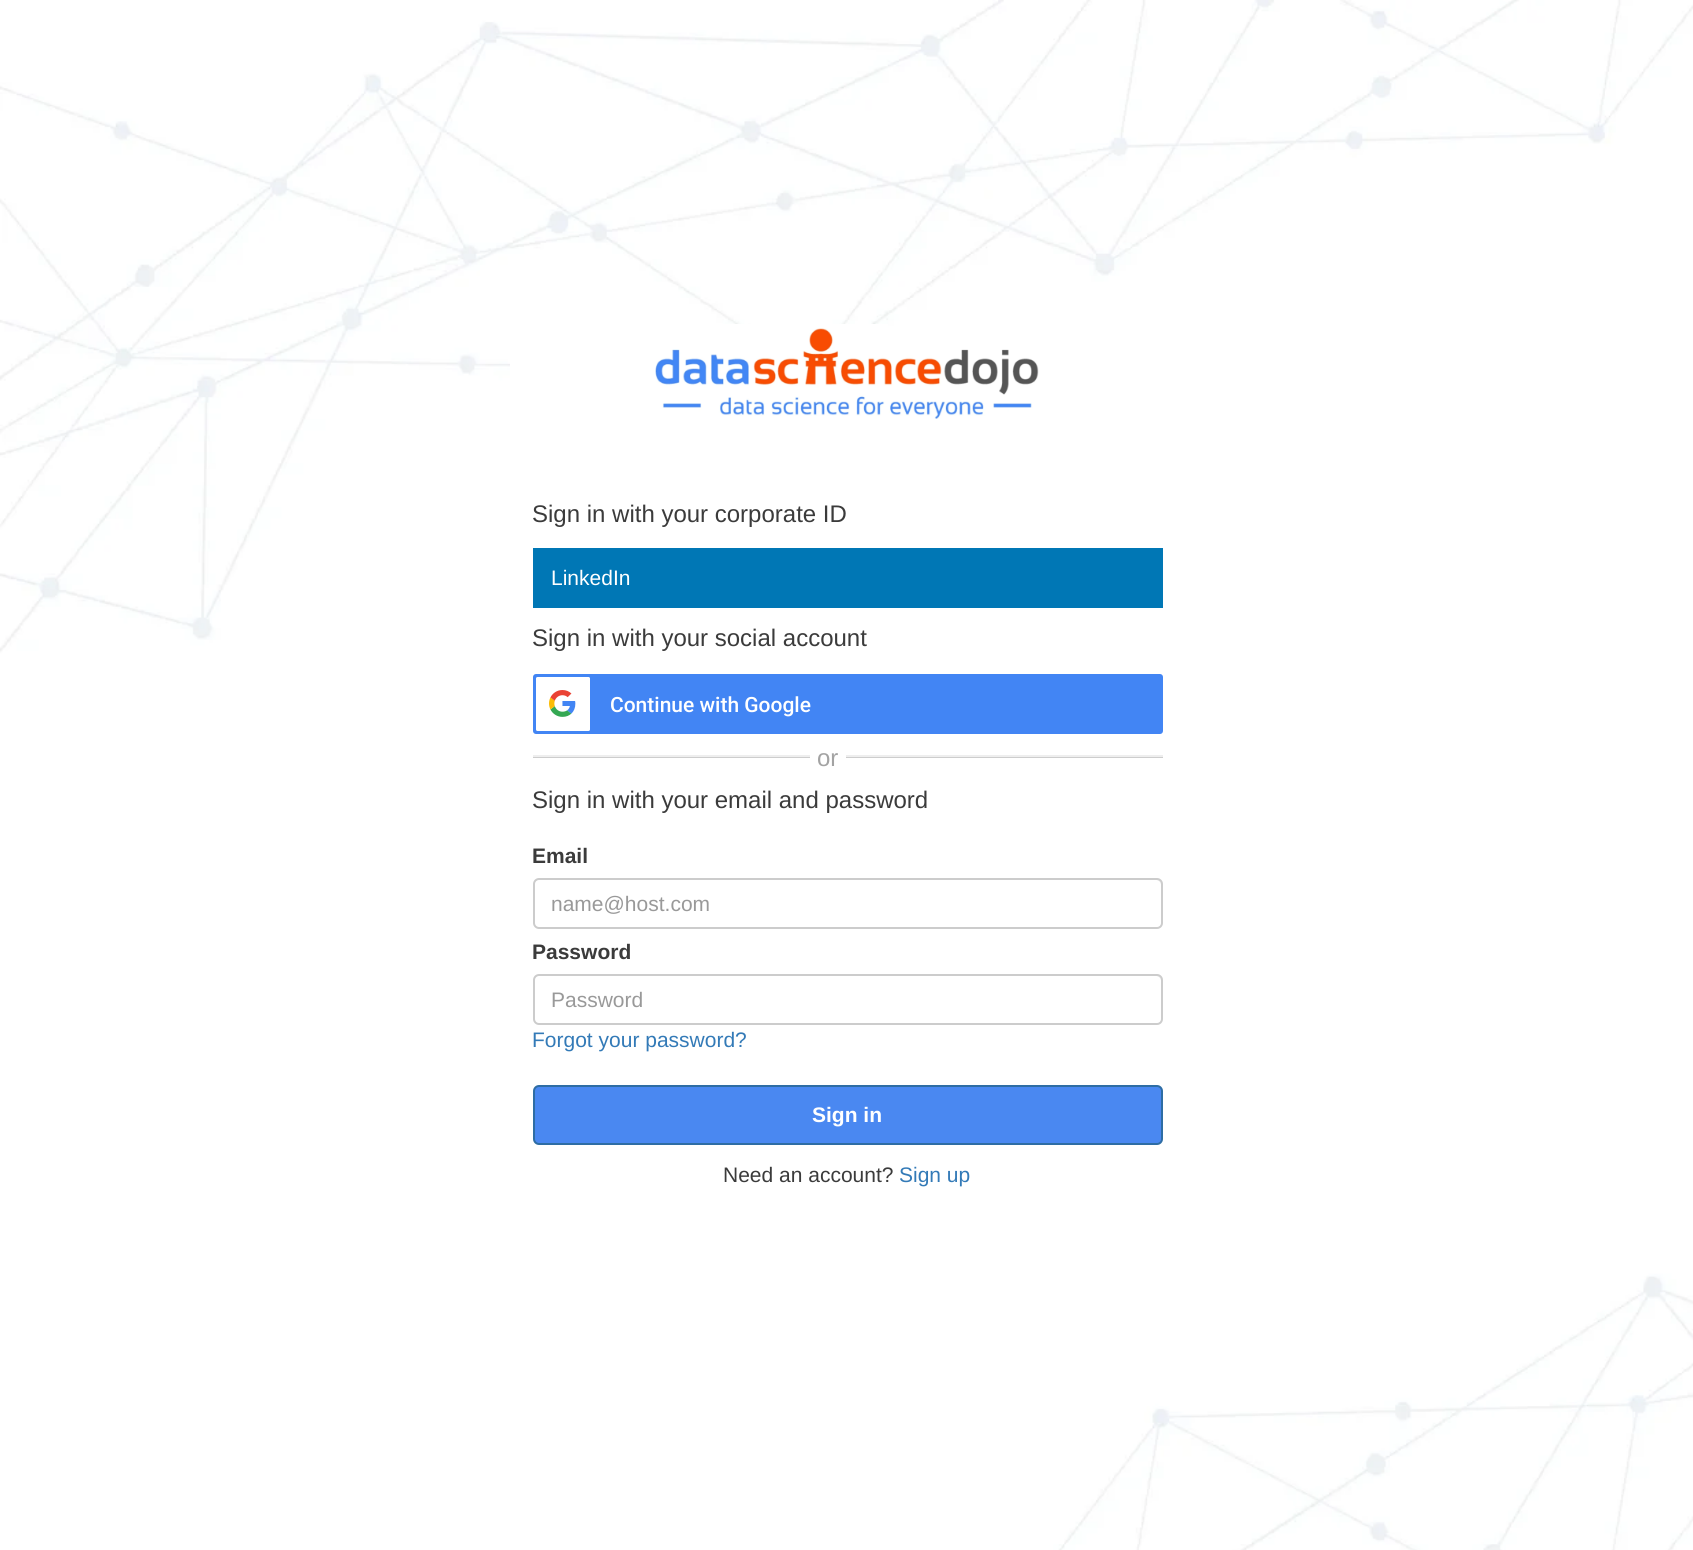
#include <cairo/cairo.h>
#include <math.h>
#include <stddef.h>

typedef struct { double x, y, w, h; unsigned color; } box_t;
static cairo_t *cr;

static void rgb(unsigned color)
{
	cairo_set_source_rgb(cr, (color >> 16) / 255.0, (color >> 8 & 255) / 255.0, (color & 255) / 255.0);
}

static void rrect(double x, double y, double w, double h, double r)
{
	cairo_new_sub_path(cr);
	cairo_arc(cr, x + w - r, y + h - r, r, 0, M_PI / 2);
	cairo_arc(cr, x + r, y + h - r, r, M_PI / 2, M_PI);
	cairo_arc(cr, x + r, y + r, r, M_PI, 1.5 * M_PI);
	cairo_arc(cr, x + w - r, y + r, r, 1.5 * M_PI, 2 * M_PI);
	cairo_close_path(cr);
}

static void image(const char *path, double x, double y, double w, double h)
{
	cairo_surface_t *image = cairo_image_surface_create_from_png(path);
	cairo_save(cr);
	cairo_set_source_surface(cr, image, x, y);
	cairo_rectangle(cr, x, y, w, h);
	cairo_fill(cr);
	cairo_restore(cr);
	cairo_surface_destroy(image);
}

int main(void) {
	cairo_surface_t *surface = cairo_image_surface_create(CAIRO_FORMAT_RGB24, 1693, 1550);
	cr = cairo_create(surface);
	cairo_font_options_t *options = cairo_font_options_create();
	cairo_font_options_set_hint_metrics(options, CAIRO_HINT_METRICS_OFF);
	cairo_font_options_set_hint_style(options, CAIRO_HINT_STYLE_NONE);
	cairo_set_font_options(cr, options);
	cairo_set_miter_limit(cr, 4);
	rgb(0xffffff);
	cairo_paint(cr);
	image("img/1.png", 0, 0, 1693, 1550);
	rgb(0xffffff);
	cairo_rectangle(cr, 510, 324, 378, 59);
	cairo_fill(cr);
	image("img/2.png", 655, 328, 384, 91);
	rgb(0x0077b5);
	cairo_rectangle(cr, 533, 548, 630, 60);
	cairo_fill(cr);
	rgb(0x4285f4);
	rrect(533, 674, 630, 60, 3);
	cairo_fill(cr);
	rgb(0xffffff);
	rrect(536, 677, 54, 54, 1.5);
	cairo_fill(cr);
	image("img/3.png", 549, 690, 27, 27);
	{
		static const box_t items[] = {
			{533, 757, 630, 1, 0xcdcdcd},
			{533, 755, 630, 2, 0xeeeeee},
			{810, 755, 36, 3, 0xffffff},
		};
		for (size_t i = 0; i < sizeof items / sizeof *items; i++) {
			rgb(items[i].color);
			cairo_rectangle(cr, items[i].x, items[i].y, items[i].w, items[i].h);
			cairo_fill(cr);
		}
	}
	rgb(0xececec);
	cairo_new_path(cr);
	cairo_move_to(cr, 538, 880);
	cairo_line_to(cr, 1156, 880);
	cairo_curve_to(cr, 1159, 880, 1161, 883, 1161, 885);
	cairo_line_to(cr, 1161, 884);
	cairo_curve_to(cr, 1161, 881, 1159, 879, 1156, 879);
	cairo_line_to(cr, 539, 879);
	cairo_curve_to(cr, 536, 879, 534, 881, 534, 884);
	cairo_line_to(cr, 534, 885);
	cairo_curve_to(cr, 534, 883, 536, 880, 538, 880);
	cairo_close_path(cr);
	cairo_fill(cr);
	rrect(534, 879, 628, 49, 5);
	rgb(0xcccccc);
	cairo_stroke(cr);
	rgb(0xececec);
	cairo_new_path(cr);
	cairo_move_to(cr, 538, 976);
	cairo_line_to(cr, 1156, 976);
	cairo_curve_to(cr, 1159, 976, 1161, 979, 1161, 981);
	cairo_line_to(cr, 1161, 980);
	cairo_curve_to(cr, 1161, 977, 1159, 975, 1156, 975);
	cairo_line_to(cr, 539, 975);
	cairo_curve_to(cr, 536, 975, 534, 977, 534, 980);
	cairo_line_to(cr, 534, 981);
	cairo_curve_to(cr, 534, 979, 536, 976, 538, 976);
	cairo_close_path(cr);
	cairo_fill(cr);
	rrect(534, 975, 628, 49, 5);
	rgb(0xcccccc);
	cairo_stroke(cr);
	rgb(0x4a88f1);
	rrect(534, 1086, 628, 58, 5);
	cairo_fill_preserve(cr);
	rgb(0x2e6da4);
	cairo_stroke(cr);
	cairo_select_font_face(cr, "Liberation Sans", CAIRO_FONT_SLANT_NORMAL, CAIRO_FONT_WEIGHT_NORMAL);
	cairo_set_font_size(cr, 24);
	rgb(0x3b3b3b);
	cairo_move_to(cr, 532, 522);
	cairo_show_text(cr, "Sign in with your corporate ID");
	cairo_set_font_size(cr, 21);
	rgb(0xffffff);
	cairo_move_to(cr, 551, 585);
	cairo_show_text(cr, "LinkedIn");
	cairo_set_font_size(cr, 24);
	rgb(0x3b3b3b);
	cairo_move_to(cr, 532, 646);
	cairo_show_text(cr, "Sign in with your social account");
	cairo_select_font_face(cr, "Roboto Medium", CAIRO_FONT_SLANT_NORMAL, CAIRO_FONT_WEIGHT_NORMAL);
	cairo_set_font_size(cr, 21);
	rgb(0xffffff);
	cairo_move_to(cr, 610, 712);
	cairo_show_text(cr, "Continue with Google");
	cairo_select_font_face(cr, "Liberation Sans", CAIRO_FONT_SLANT_NORMAL, CAIRO_FONT_WEIGHT_NORMAL);
	cairo_set_font_size(cr, 24);
	rgb(0xa3a3a3);
	cairo_move_to(cr, 817, 766);
	cairo_show_text(cr, "or");
	rgb(0x3b3b3b);
	cairo_move_to(cr, 532, 808);
	cairo_show_text(cr, "Sign in with your email and password");
	cairo_select_font_face(cr, "Liberation Sans", CAIRO_FONT_SLANT_NORMAL, CAIRO_FONT_WEIGHT_BOLD);
	cairo_set_font_size(cr, 21);
	cairo_move_to(cr, 532, 863);
	cairo_show_text(cr, "Email");
	cairo_select_font_face(cr, "Liberation Sans", CAIRO_FONT_SLANT_NORMAL, CAIRO_FONT_WEIGHT_NORMAL);
	rgb(0x999999);
	cairo_move_to(cr, 551, 911);
	cairo_show_text(cr, "name@host.com");
	cairo_select_font_face(cr, "Liberation Sans", CAIRO_FONT_SLANT_NORMAL, CAIRO_FONT_WEIGHT_BOLD);
	rgb(0x3b3b3b);
	cairo_move_to(cr, 532, 959);
	cairo_show_text(cr, "Password");
	cairo_select_font_face(cr, "Liberation Sans", CAIRO_FONT_SLANT_NORMAL, CAIRO_FONT_WEIGHT_NORMAL);
	rgb(0x999999);
	cairo_move_to(cr, 551, 1007);
	cairo_show_text(cr, "Password");
	rgb(0x337ab7);
	cairo_move_to(cr, 532, 1047);
	cairo_show_text(cr, "Forgot your password?");
	cairo_select_font_face(cr, "Liberation Sans", CAIRO_FONT_SLANT_NORMAL, CAIRO_FONT_WEIGHT_BOLD);
	rgb(0xffffff);
	cairo_move_to(cr, 812, 1122);
	cairo_show_text(cr, "Sign in");
	cairo_select_font_face(cr, "Liberation Sans", CAIRO_FONT_SLANT_NORMAL, CAIRO_FONT_WEIGHT_NORMAL);
	rgb(0x3b3b3b);
	cairo_move_to(cr, 723, 1182);
	cairo_show_text(cr, "Need an account?");
	rgb(0x337ab7);
	cairo_move_to(cr, 899, 1182);
	cairo_show_text(cr, "Sign up");
	cairo_surface_write_to_png(surface, "page.png");
	cairo_font_options_destroy(options);
	cairo_destroy(cr);
	cairo_surface_destroy(surface);
	return 0;
}
